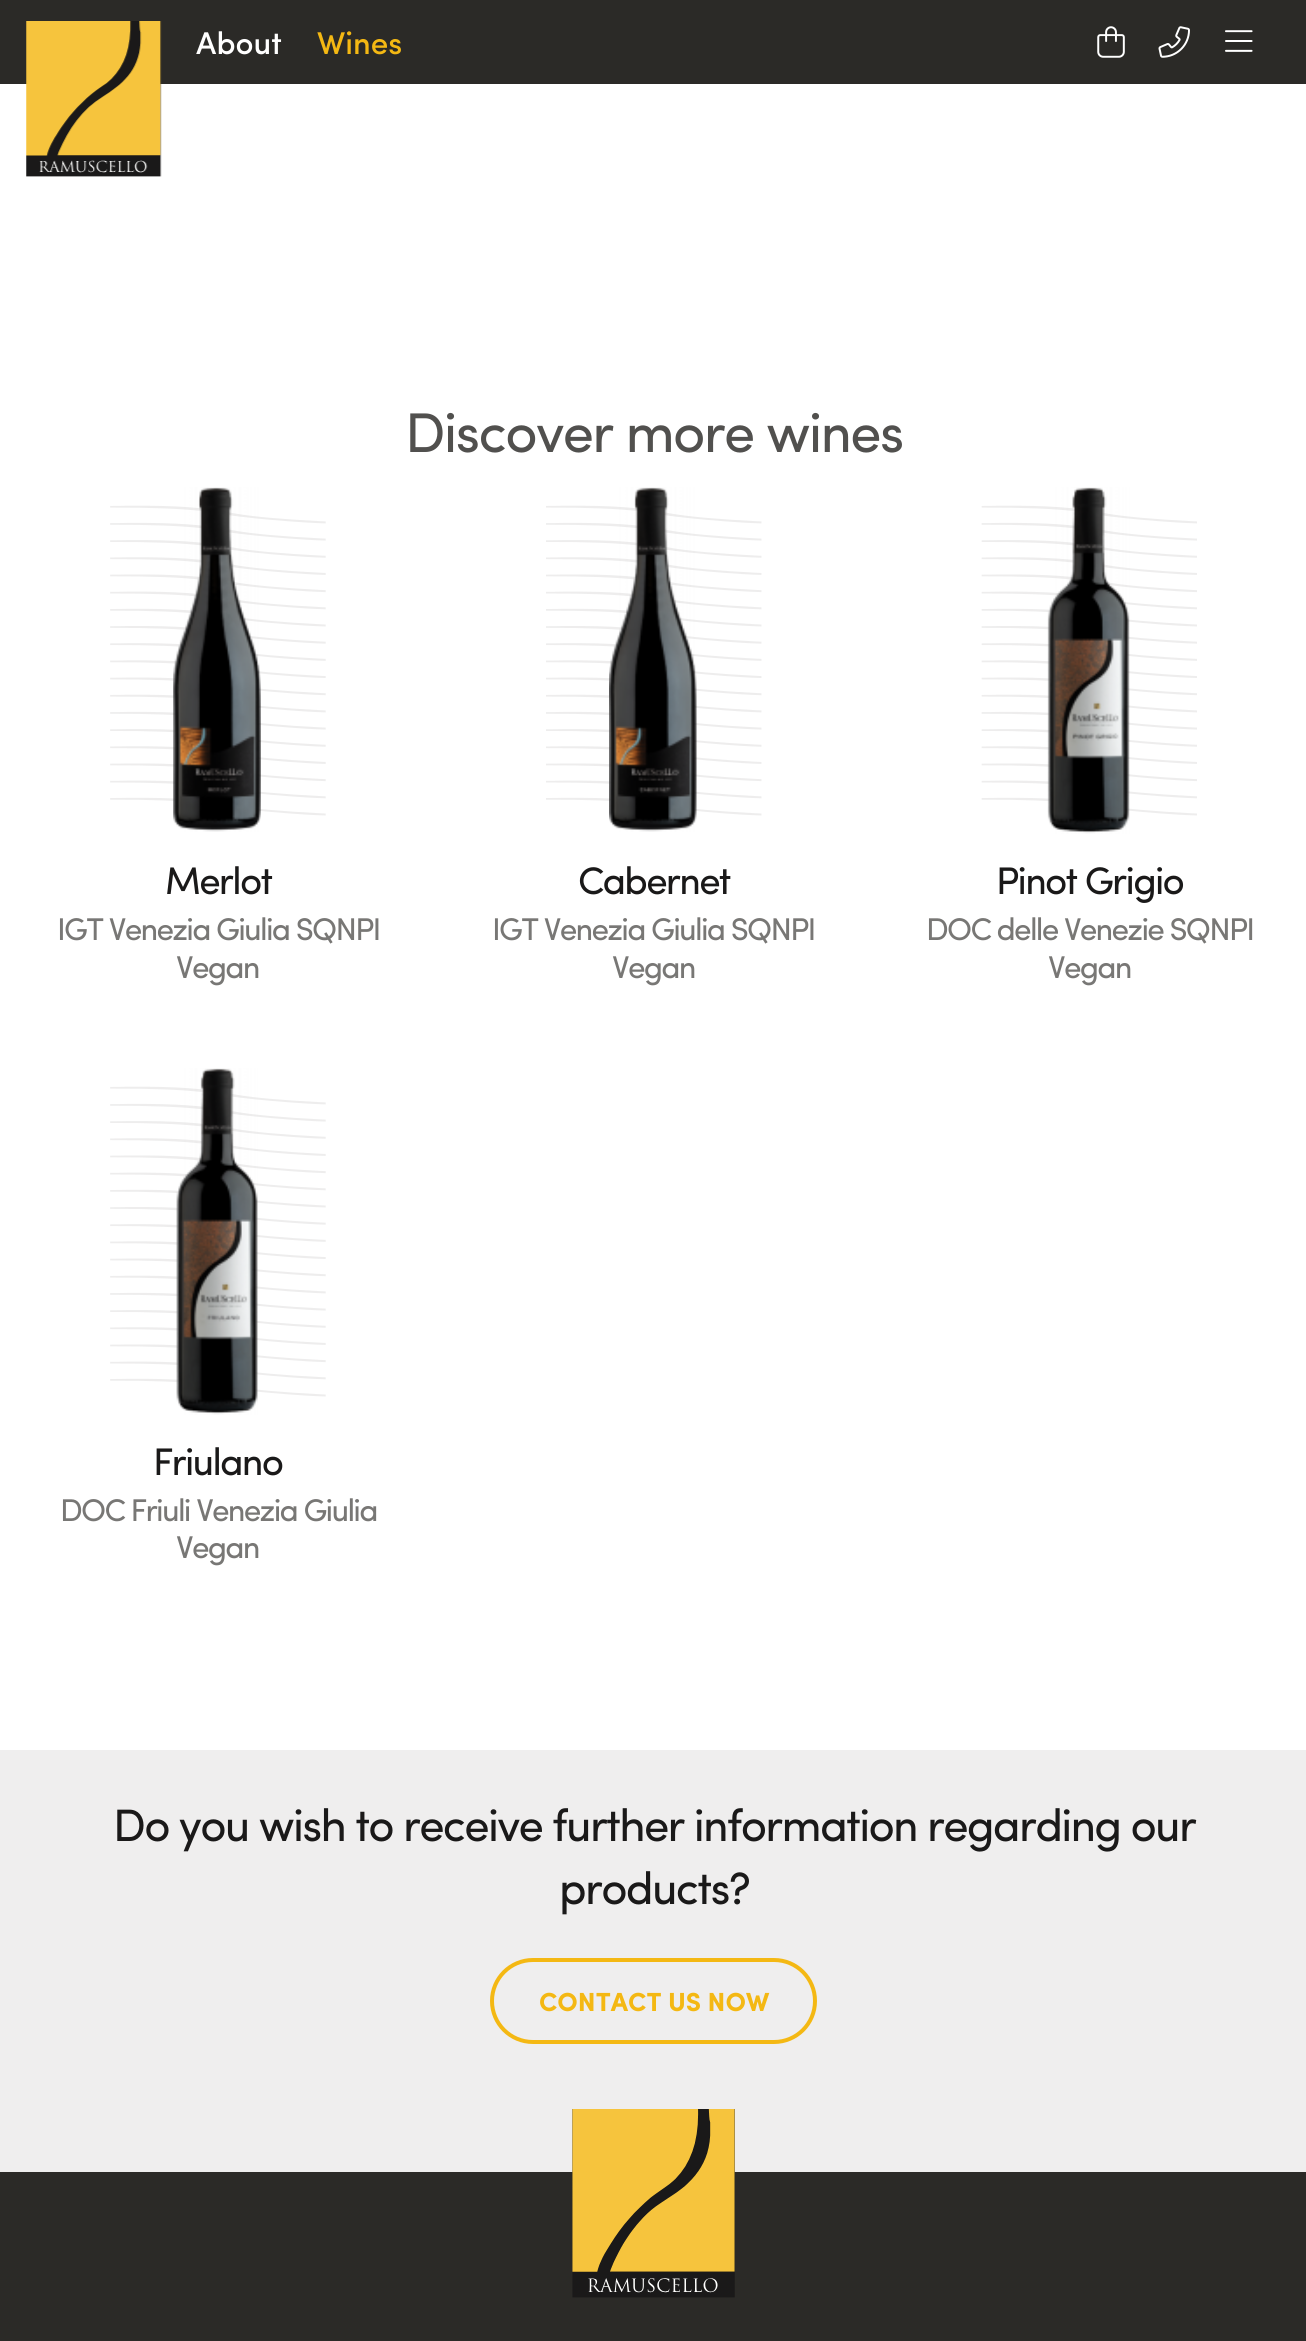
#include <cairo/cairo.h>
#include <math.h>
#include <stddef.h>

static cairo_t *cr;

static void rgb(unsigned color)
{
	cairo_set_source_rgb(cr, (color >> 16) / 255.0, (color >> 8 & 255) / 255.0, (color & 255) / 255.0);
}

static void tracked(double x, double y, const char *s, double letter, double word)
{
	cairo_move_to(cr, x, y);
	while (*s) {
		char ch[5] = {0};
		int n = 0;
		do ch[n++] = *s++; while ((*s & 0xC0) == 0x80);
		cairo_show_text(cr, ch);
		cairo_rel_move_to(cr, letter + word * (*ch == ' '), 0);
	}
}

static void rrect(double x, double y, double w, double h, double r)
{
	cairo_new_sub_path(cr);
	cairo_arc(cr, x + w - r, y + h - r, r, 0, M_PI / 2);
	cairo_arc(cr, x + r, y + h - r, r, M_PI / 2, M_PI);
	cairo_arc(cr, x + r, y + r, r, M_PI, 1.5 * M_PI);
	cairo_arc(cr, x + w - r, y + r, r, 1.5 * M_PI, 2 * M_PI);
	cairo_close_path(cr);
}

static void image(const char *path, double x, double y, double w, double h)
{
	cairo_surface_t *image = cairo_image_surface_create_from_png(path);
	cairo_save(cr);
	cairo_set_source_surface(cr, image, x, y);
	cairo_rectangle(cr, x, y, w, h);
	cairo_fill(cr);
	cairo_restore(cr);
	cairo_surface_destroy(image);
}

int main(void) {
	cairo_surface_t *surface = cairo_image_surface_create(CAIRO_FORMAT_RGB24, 1306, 2341);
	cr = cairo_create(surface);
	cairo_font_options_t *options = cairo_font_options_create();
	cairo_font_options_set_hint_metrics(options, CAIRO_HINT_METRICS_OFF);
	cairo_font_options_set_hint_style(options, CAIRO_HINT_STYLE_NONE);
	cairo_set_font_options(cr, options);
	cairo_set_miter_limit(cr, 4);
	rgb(0xffffff);
	cairo_paint(cr);
	rgb(0x2b2a27);
	cairo_rectangle(cr, 0, 0, 1306, 84);
	cairo_fill(cr);
	image("img/1.png", 26, 21, 136, 156);
	image("img/2.png", 1097, 26, 28, 32);
	image("img/3.png", 1158, 26, 32, 32);
	image("img/4.png", 1225, 30, 28, 22);
	image("img/5.png", 110, 505, 216, 311);
	image("img/6.png", 173, 487, 88, 345);
	image("img/7.png", 546, 505, 216, 311);
	image("img/8.png", 609, 487, 88, 345);
	image("img/9.png", 981, 505, 216, 311);
	image("img/10.png", 1047, 487, 83, 347);
	image("img/5.png", 110, 1086, 216, 311);
	image("img/11.png", 176, 1068, 82, 347);
	rgb(0xefeeee);
	cairo_rectangle(cr, 0, 1750, 1306, 422);
	cairo_fill(cr);
	rrect(492, 1960, 323, 82, 41);
	rgb(0xf4b813);
	cairo_set_line_width(cr, 4);
	cairo_stroke(cr);
	rgb(0x2b2a27);
	cairo_rectangle(cr, 0, 2172, 1306, 169);
	cairo_fill(cr);
	image("img/12.png", 572, 2109, 163, 189);
	cairo_select_font_face(cr, "Sofia Medium", CAIRO_FONT_SLANT_NORMAL, CAIRO_FONT_WEIGHT_NORMAL);
	cairo_set_font_size(cr, 31.5);
	rgb(0xffffff);
	cairo_move_to(cr, 196, 54);
	cairo_show_text(cr, "About");
	rgb(0xf4b813);
	cairo_move_to(cr, 317, 54);
	cairo_show_text(cr, "Wines");
	cairo_select_font_face(cr, "Sofia", CAIRO_FONT_SLANT_NORMAL, CAIRO_FONT_WEIGHT_NORMAL);
	cairo_set_font_size(cr, 56);
	rgb(0x51504e);
	tracked(405, 452, "Discover more wines", -1.75, 0);
	cairo_set_font_size(cr, 38.5);
	rgb(0x1a1919);
	tracked(165, 894, "Merlot", -1.75, 0);
	cairo_set_font_size(cr, 31.5);
	rgb(0x787775);
	tracked(57, 940, "IGT Venezia Giulia SQNPI", -1.75, 0);
	tracked(176, 978, "Vegan", -1.75, 0);
	cairo_set_font_size(cr, 38.5);
	rgb(0x1a1919);
	tracked(578, 894, "Cabernet", -1.75, 0);
	cairo_set_font_size(cr, 31.5);
	rgb(0x787775);
	tracked(492, 940, "IGT Venezia Giulia SQNPI", -1.75, 0);
	tracked(612, 978, "Vegan", -1.75, 0);
	cairo_set_font_size(cr, 38.5);
	rgb(0x1a1919);
	tracked(996, 894, "Pinot Grigio", -1.75, 0);
	cairo_set_font_size(cr, 31.5);
	rgb(0x787775);
	tracked(926, 940, "DOC delle Venezie SQNPI", -1.75, 0);
	tracked(1048, 978, "Vegan", -1.75, 0);
	cairo_set_font_size(cr, 38.5);
	rgb(0x1a1919);
	tracked(153, 1475, "Friulano", -1.75, 0);
	cairo_set_font_size(cr, 31.5);
	rgb(0x787775);
	tracked(60, 1521, "DOC Friuli Venezia Giulia", -1.75, 0);
	tracked(176, 1558, "Vegan", -1.75, 0);
	cairo_set_font_size(cr, 45.5);
	rgb(0x1a1919);
	tracked(113, 1841, "Do you wish to receive further information regarding our", -1.75, 0);
	tracked(559, 1904, "products?", -1.75, 0);
	cairo_select_font_face(cr, "Sofia", CAIRO_FONT_SLANT_NORMAL, CAIRO_FONT_WEIGHT_BOLD);
	cairo_set_font_size(cr, 26.25);
	rgb(0xf4b813);
	cairo_move_to(cr, 539, 2011);
	cairo_show_text(cr, "CONTACT US NOW");
	cairo_surface_write_to_png(surface, "page.png");
	cairo_font_options_destroy(options);
	cairo_destroy(cr);
	cairo_surface_destroy(surface);
	return 0;
}
